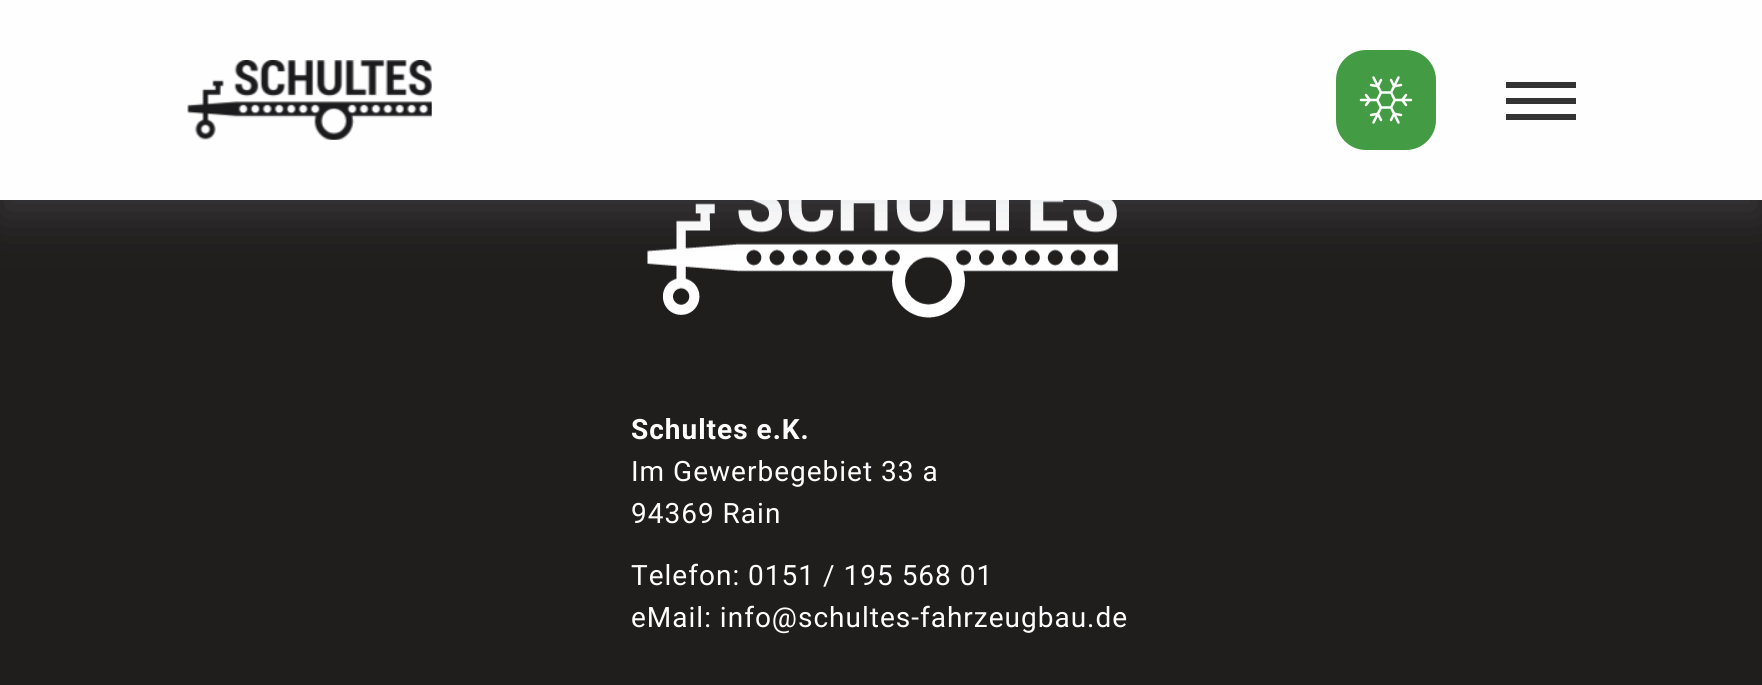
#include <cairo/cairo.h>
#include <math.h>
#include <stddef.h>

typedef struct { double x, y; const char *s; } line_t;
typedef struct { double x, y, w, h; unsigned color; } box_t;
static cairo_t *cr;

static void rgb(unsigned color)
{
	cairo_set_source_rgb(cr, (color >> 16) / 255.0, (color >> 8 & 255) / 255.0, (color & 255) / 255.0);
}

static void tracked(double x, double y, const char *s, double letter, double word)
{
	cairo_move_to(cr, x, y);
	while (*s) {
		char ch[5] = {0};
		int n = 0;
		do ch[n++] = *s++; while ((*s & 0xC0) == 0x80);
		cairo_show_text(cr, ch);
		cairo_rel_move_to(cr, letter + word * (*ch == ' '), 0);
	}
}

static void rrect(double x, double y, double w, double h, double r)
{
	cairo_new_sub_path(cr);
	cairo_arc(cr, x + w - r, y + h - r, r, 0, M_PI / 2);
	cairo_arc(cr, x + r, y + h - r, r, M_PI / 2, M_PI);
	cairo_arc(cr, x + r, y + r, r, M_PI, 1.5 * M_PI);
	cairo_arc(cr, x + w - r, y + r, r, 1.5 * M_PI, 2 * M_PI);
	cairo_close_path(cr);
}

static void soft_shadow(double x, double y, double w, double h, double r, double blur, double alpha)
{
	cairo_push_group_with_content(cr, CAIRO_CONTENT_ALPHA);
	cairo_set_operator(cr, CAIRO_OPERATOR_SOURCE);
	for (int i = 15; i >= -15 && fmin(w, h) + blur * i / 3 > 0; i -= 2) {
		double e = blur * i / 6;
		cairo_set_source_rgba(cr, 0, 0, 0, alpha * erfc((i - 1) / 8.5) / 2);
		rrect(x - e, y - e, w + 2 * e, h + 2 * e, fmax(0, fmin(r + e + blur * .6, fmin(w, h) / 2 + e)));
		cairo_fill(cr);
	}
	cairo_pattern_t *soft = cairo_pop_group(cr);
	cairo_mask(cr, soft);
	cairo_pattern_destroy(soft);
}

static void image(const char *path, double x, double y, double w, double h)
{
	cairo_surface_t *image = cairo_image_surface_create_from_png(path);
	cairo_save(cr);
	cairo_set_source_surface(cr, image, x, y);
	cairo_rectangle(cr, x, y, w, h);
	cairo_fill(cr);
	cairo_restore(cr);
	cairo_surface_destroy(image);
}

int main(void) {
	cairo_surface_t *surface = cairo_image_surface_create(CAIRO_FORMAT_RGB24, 1762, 685);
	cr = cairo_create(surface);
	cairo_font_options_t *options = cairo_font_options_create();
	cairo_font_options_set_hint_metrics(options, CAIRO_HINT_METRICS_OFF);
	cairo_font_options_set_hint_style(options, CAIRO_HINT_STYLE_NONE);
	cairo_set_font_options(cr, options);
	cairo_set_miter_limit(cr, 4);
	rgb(0x201d1d);
	cairo_paint(cr);
	image("img/3.png", 647, 200, 471, 118);
	rgb(0x959da5);
	soft_shadow(0, 16, 1762, 200, 0, 24, 0.2);
	rgb(0xfefefe);
	cairo_rectangle(cr, 0, 0, 1762, 200);
	cairo_fill(cr);
	image("img/1.png", 187, 60, 245, 80);
	rgb(0x439c43);
	rrect(1336, 50, 100, 100, 30);
	cairo_fill(cr);
	image("img/2.png", 1359, 76, 54, 48);
	{
		static const box_t items[] = {
			{1506, 82, 70, 6, 0x333333},
			{1506, 98, 70, 6, 0x333333},
			{1506, 114, 70, 6, 0x333333},
		};
		for (size_t i = 0; i < sizeof items / sizeof *items; i++) {
			rgb(items[i].color);
			cairo_rectangle(cr, items[i].x, items[i].y, items[i].w, items[i].h);
			cairo_fill(cr);
		}
	}
	cairo_select_font_face(cr, "Roboto", CAIRO_FONT_SLANT_NORMAL, CAIRO_FONT_WEIGHT_BOLD);
	cairo_set_font_size(cr, 28);
	rgb(0xfefefe);
	tracked(631, 439, "Schultes e.K.", 1, 0);
	cairo_select_font_face(cr, "Roboto", CAIRO_FONT_SLANT_NORMAL, CAIRO_FONT_WEIGHT_NORMAL);
	{
		static const line_t items[] = {
			{631, 481, "Im Gewerbegebiet 33 a"},
			{631, 523, "94369 Rain"},
			{631, 585, "Telefon: 0151 / 195 568 01"},
			{631, 627, "eMail: info@schultes-fahrzeugbau.de"},
		};
		for (size_t i = 0; i < sizeof items / sizeof *items; i++) {
			tracked(items[i].x, items[i].y, items[i].s, 1, 0);
		}
	}
	cairo_surface_write_to_png(surface, "page.png");
	cairo_font_options_destroy(options);
	cairo_destroy(cr);
	cairo_surface_destroy(surface);
	return 0;
}
